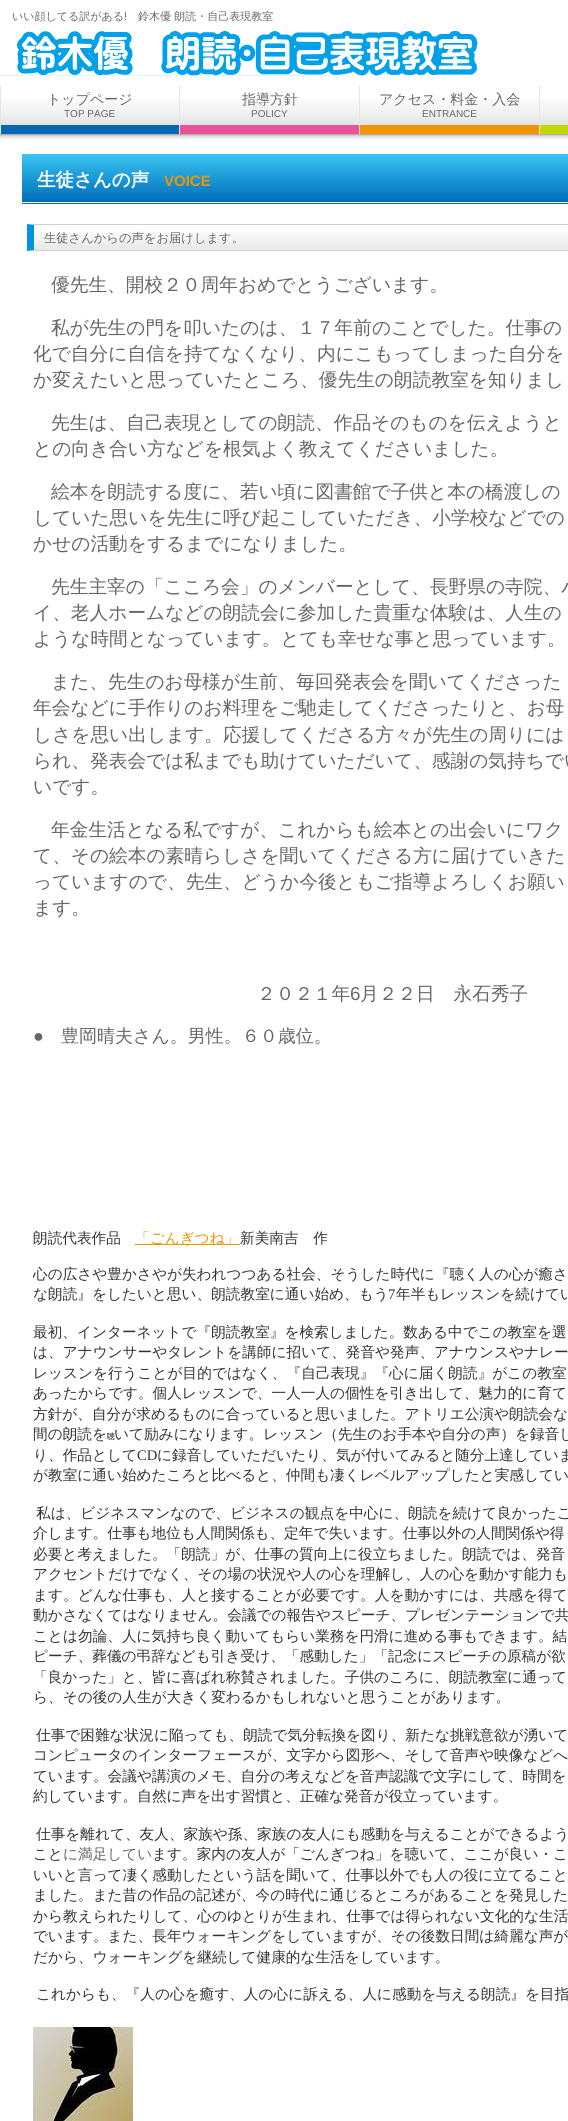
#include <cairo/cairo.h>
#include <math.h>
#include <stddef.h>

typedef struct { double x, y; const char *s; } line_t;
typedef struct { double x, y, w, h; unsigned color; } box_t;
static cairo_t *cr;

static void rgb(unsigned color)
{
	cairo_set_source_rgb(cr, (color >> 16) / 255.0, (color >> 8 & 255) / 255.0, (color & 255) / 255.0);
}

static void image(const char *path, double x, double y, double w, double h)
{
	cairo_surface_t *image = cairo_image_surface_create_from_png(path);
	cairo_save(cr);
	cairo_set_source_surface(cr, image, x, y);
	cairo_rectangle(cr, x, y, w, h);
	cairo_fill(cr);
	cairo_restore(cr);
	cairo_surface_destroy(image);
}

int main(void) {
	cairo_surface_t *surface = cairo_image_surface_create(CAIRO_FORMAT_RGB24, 568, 2121);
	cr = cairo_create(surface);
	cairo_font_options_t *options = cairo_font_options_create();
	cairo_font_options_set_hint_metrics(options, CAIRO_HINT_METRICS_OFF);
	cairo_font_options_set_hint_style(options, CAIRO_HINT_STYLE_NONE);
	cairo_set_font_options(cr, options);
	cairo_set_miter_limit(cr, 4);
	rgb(0xffffff);
	cairo_paint(cr);
	image("img/1.png", 0, 99, 568, 41);
	image("img/2.png", 0, 30, 478, 46);
	{
		static const box_t items[] = {
			{0, 85, 1, 49, 0xe6e6e7},
			{179, 85, 1, 49, 0xe6e6e7},
			{1, 125, 178, 9, 0x0068b7},
			{359, 85, 1, 49, 0xe6e6e7},
			{180, 125, 179, 9, 0xe85298},
			{539, 85, 1, 49, 0xe6e6e7},
			{360, 125, 179, 9, 0xf29300},
			{540, 125, 28, 9, 0xc3d700},
			{22, 154, 546, 3, 0x37c4f1},
		};
		for (size_t i = 0; i < sizeof items / sizeof *items; i++) {
			rgb(items[i].color);
			cairo_rectangle(cr, items[i].x, items[i].y, items[i].w, items[i].h);
			cairo_fill(cr);
		}
	}
	image("img/3.png", 22, 157, 546, 47);
	image("img/4.png", 34, 232, 534, 18);
	rgb(0xd1d1d2);
	cairo_new_path(cr);
	cairo_move_to(cr, 27, 224);
	cairo_line_to(cr, 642, 224);
	cairo_line_to(cr, 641, 225);
	cairo_line_to(cr, 34, 225);
	cairo_close_path(cr);
	cairo_fill(cr);
	cairo_new_path(cr);
	cairo_move_to(cr, 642, 251);
	cairo_line_to(cr, 27, 251);
	cairo_line_to(cr, 34, 250);
	cairo_line_to(cr, 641, 250);
	cairo_close_path(cr);
	cairo_fill(cr);
	rgb(0x0093e6);
	cairo_new_path(cr);
	cairo_move_to(cr, 27, 251);
	cairo_line_to(cr, 27, 224);
	cairo_line_to(cr, 34, 225);
	cairo_line_to(cr, 34, 250);
	cairo_close_path(cr);
	cairo_fill(cr);
	rgb(0xf29300);
	cairo_rectangle(cr, 135, 1244, 105, 1);
	cairo_fill(cr);
	image("img/5.png", 33, 2027, 100, 94);
	cairo_select_font_face(cr, "WenQuanYi Zen Hei Medium", CAIRO_FONT_SLANT_NORMAL, CAIRO_FONT_WEIGHT_NORMAL);
	cairo_set_font_size(cr, 11);
	rgb(0x666666);
	cairo_move_to(cr, 12, 20);
	cairo_show_text(cr, "いい顔してる訳がある");
	cairo_select_font_face(cr, "Liberation Sans", CAIRO_FONT_SLANT_NORMAL, CAIRO_FONT_WEIGHT_NORMAL);
	cairo_move_to(cr, 124, 20);
	cairo_show_text(cr, "!");
	cairo_select_font_face(cr, "WenQuanYi Zen Hei Medium", CAIRO_FONT_SLANT_NORMAL, CAIRO_FONT_WEIGHT_NORMAL);
	cairo_move_to(cr, 138, 20);
	cairo_show_text(cr, "鈴木優 朗読・自己表現教室");
	cairo_set_font_size(cr, 14);
	cairo_move_to(cr, 47, 104);
	cairo_show_text(cr, "トップページ");
	cairo_select_font_face(cr, "Liberation Sans", CAIRO_FONT_SLANT_NORMAL, CAIRO_FONT_WEIGHT_NORMAL);
	cairo_set_font_size(cr, 10);
	cairo_move_to(cr, 64, 117);
	cairo_show_text(cr, "TOP PAGE");
	cairo_select_font_face(cr, "WenQuanYi Zen Hei Medium", CAIRO_FONT_SLANT_NORMAL, CAIRO_FONT_WEIGHT_NORMAL);
	cairo_set_font_size(cr, 14);
	cairo_move_to(cr, 242, 104);
	cairo_show_text(cr, "指導方針");
	cairo_select_font_face(cr, "Liberation Sans", CAIRO_FONT_SLANT_NORMAL, CAIRO_FONT_WEIGHT_NORMAL);
	cairo_set_font_size(cr, 10);
	cairo_move_to(cr, 251, 117);
	cairo_show_text(cr, "POLICY");
	cairo_select_font_face(cr, "WenQuanYi Zen Hei Medium", CAIRO_FONT_SLANT_NORMAL, CAIRO_FONT_WEIGHT_NORMAL);
	cairo_set_font_size(cr, 14);
	cairo_move_to(cr, 379, 104);
	cairo_show_text(cr, "アクセス・料金・入会");
	cairo_select_font_face(cr, "Liberation Sans", CAIRO_FONT_SLANT_NORMAL, CAIRO_FONT_WEIGHT_NORMAL);
	cairo_set_font_size(cr, 10);
	cairo_move_to(cr, 422, 117);
	cairo_show_text(cr, "ENTRANCE");
	cairo_select_font_face(cr, "WenQuanYi Zen Hei", CAIRO_FONT_SLANT_NORMAL, CAIRO_FONT_WEIGHT_BOLD);
	cairo_set_font_size(cr, 18.5);
	rgb(0xffffff);
	cairo_move_to(cr, 37, 186);
	cairo_show_text(cr, "生徒さんの声");
	cairo_select_font_face(cr, "Liberation Sans", CAIRO_FONT_SLANT_NORMAL, CAIRO_FONT_WEIGHT_BOLD);
	cairo_set_font_size(cr, 15);
	rgb(0xf29300);
	cairo_move_to(cr, 164, 186);
	cairo_show_text(cr, "VOICE");
	cairo_select_font_face(cr, "WenQuanYi Zen Hei Medium", CAIRO_FONT_SLANT_NORMAL, CAIRO_FONT_WEIGHT_NORMAL);
	cairo_set_font_size(cr, 12.3);
	rgb(0x666666);
	cairo_move_to(cr, 44, 242);
	cairo_show_text(cr, "生徒さんからの声をお届けします。");
	cairo_set_font_size(cr, 18.7);
	{
		static const line_t items[] = {
			{51, 291, "優先生、開校２０周年おめでとうございます。"},
			{51, 334, "私が先生の門を叩いたのは、１７年前のことでした。仕事の"},
			{33, 360, "化で自分に自信を持てなくなり、内にこもってしまった自分を"},
			{33, 386, "か変えたいと思っていたところ、優先生の朗読教室を知りまし"},
			{51, 429, "先生は、自己表現としての朗読、作品そのものを伝えようと"},
			{33, 455, "との向き合い方などを根気よく教えてくださいました。"},
			{51, 498, "絵本を朗読する度に、若い頃に図書館で子供と本の橋渡しの"},
			{33, 524, "していた思いを先生に呼び起こしていただき、小学校などでの"},
			{33, 550, "かせの活動をするまでになりました。"},
			{51, 593, "先生主宰の「こころ会」のメンバーとして、長野県の寺院、ハ"},
			{33, 619, "イ、老人ホームなどの朗読会に参加した貴重な体験は、人生の"},
			{33, 645, "ような時間となっています。とても幸せな事と思っています。"},
			{51, 688, "また、先生のお母様が生前、毎回発表会を聞いてくださった"},
			{33, 714, "年会などに手作りのお料理をご馳走してくださったりと、お母"},
			{33, 741, "しさを思い出します。応援してくださる方々が先生の周りには"},
			{33, 767, "られ、発表会では私までも助けていただいて、感謝の気持ちでい"},
			{33, 793, "いです。"},
			{51, 836, "年金生活となる私ですが、これからも絵本との出会いにワク"},
			{33, 862, "て、その絵本の素晴らしさを聞いてくださる方に届けていきた"},
			{33, 888, "っていますので、先生、どうか今後ともご指導よろしくお願い"},
			{33, 914, "ます。"},
			{257, 1000, "２０２１年"},
		};
		for (size_t i = 0; i < sizeof items / sizeof *items; i++) {
			cairo_move_to(cr, items[i].x, items[i].y);
			cairo_show_text(cr, items[i].s);
		}
	}
	cairo_select_font_face(cr, "Liberation Sans", CAIRO_FONT_SLANT_NORMAL, CAIRO_FONT_WEIGHT_NORMAL);
	cairo_move_to(cr, 350, 1000);
	cairo_show_text(cr, "6");
	cairo_select_font_face(cr, "WenQuanYi Zen Hei Medium", CAIRO_FONT_SLANT_NORMAL, CAIRO_FONT_WEIGHT_NORMAL);
	cairo_move_to(cr, 360, 1000);
	cairo_show_text(cr, "月２２日　永石秀子");
	cairo_select_font_face(cr, "Liberation Sans", CAIRO_FONT_SLANT_NORMAL, CAIRO_FONT_WEIGHT_NORMAL);
	cairo_set_font_size(cr, 18);
	cairo_move_to(cr, 33, 1042);
	cairo_show_text(cr, "●");
	cairo_select_font_face(cr, "WenQuanYi Zen Hei Medium", CAIRO_FONT_SLANT_NORMAL, CAIRO_FONT_WEIGHT_NORMAL);
	cairo_move_to(cr, 61, 1042);
	cairo_show_text(cr, "豊岡晴夫さん。男性。６０歳位。");
	cairo_set_font_size(cr, 14.65);
	rgb(0x333333);
	cairo_move_to(cr, 33, 1243);
	cairo_show_text(cr, "朗読代表作品");
	rgb(0xf29300);
	cairo_move_to(cr, 135, 1243);
	cairo_show_text(cr, "「ごんぎつね」");
	rgb(0x333333);
	{
		static const line_t items[] = {
			{240, 1243, "新美南吉　作"},
			{33, 1279, "心の広さや豊かさやが失われつつある社会、そうした時代に『聴く人の心が癒さ"},
			{33, 1299, "な朗読』をしたいと思い、朗読教室に通い始め、もう"},
		};
		for (size_t i = 0; i < sizeof items / sizeof *items; i++) {
			cairo_move_to(cr, items[i].x, items[i].y);
			cairo_show_text(cr, items[i].s);
		}
	}
	cairo_select_font_face(cr, "Liberation Serif", CAIRO_FONT_SLANT_NORMAL, CAIRO_FONT_WEIGHT_NORMAL);
	cairo_move_to(cr, 388, 1299);
	cairo_show_text(cr, "7");
	cairo_select_font_face(cr, "WenQuanYi Zen Hei Medium", CAIRO_FONT_SLANT_NORMAL, CAIRO_FONT_WEIGHT_NORMAL);
	{
		static const line_t items[] = {
			{396, 1299, "年半もレッスンを続けてい"},
			{33, 1337, "最初、インターネットで『朗読教室』を検索しました。数ある中でこの教室を選"},
			{33, 1357, "は、アナウンサーやタレントを講師に招いて、発音や発声、アナウンスやナレー"},
			{33, 1378, "レッスンを行うことが目的ではなく、『自己表現』『心に届く朗読』がこの教室"},
			{33, 1398, "あったからです。個人レッスンで、一人一人の個性を引き出して、魅力的に育て"},
			{33, 1419, "方針が、自分が求めるものに合っていると思いました。アトリエ公演や朗読会な"},
			{33, 1439, "間の朗読を"},
		};
		for (size_t i = 0; i < sizeof items / sizeof *items; i++) {
			cairo_move_to(cr, items[i].x, items[i].y);
			cairo_show_text(cr, items[i].s);
		}
	}
	cairo_set_font_size(cr, 8);
	rgb(0x000000);
	cairo_move_to(cr, 107, 1439);
	cairo_show_text(cr, "聴");
	cairo_set_font_size(cr, 14.65);
	rgb(0x333333);
	cairo_move_to(cr, 114, 1439);
	cairo_show_text(cr, "いて励みになります。レッスン（先生のお手本や自分の声）を録音し");
	cairo_move_to(cr, 33, 1460);
	cairo_show_text(cr, "り、作品として");
	cairo_select_font_face(cr, "Liberation Serif", CAIRO_FONT_SLANT_NORMAL, CAIRO_FONT_WEIGHT_NORMAL);
	cairo_move_to(cr, 137, 1460);
	cairo_show_text(cr, "CD");
	cairo_select_font_face(cr, "WenQuanYi Zen Hei Medium", CAIRO_FONT_SLANT_NORMAL, CAIRO_FONT_WEIGHT_NORMAL);
	{
		static const line_t items[] = {
			{157, 1460, "に録音していただいたり、気が付いてみると随分上達していま"},
			{33, 1480, "が教室に通い始めたころと比べると、仲間も凄くレベルアップしたと実感してい"},
			{36, 1518, "私は、ビジネスマンなので、ビジネスの観点を中心に、朗読を続けて良かったこ"},
			{33, 1538, "介します。仕事も地位も人間関係も、定年で失います。仕事以外の人間関係や得"},
			{33, 1559, "必要と考えました。「朗読」が、仕事の質向上に役立ちました。朗読では、発音"},
			{33, 1579, "アクセントだけでなく、その場の状況や人の心を理解し、人の心を動かす能力も"},
			{33, 1600, "ます。どんな仕事も、人と接することが必要です。人を動かすには、共感を得て"},
			{33, 1620, "動かさなくてはなりません。会議での報告やスピーチ、プレゼンテーションで共"},
			{33, 1641, "ことは勿論、人に気持ち良く動いてもらい業務を円滑に進める事"},
			{463, 1641, "もできます。結"},
			{33, 1661, "ピーチ、葬儀の弔辞なども引き受け、「感動した」「記念にスピーチの原稿が欲"},
			{33, 1682, "「良かった」と、皆に喜ばれ称賛されました。子供のころに、朗読教室に通って"},
			{33, 1702, "ら、その後の人生が大きく変わるかもしれないと思うことがあります。"},
			{36, 1740, "仕事で困難な状況に陥っても、朗読で気分転換を図り、新たな挑戦意欲が湧いて"},
			{33, 1760, "コンピュータのインターフェースが、文字から図形へ、そして音声や映像などへ"},
			{33, 1781, "ています。会議や講演のメモ、自分の考えなどを音声認識で文字にして、時間を"},
			{33, 1801, "約しています。自然に声を出す習慣と、正確な発音が役立っています。"},
			{36, 1839, "仕事を離れて、友人、家族や孫、家族の友人にも感動を与えることができるよう"},
			{33, 1859, "こと"},
		};
		for (size_t i = 0; i < sizeof items / sizeof *items; i++) {
			cairo_move_to(cr, items[i].x, items[i].y);
			cairo_show_text(cr, items[i].s);
		}
	}
	rgb(0x666666);
	cairo_move_to(cr, 63, 1859);
	cairo_show_text(cr, "に満足してい");
	rgb(0x333333);
	{
		static const line_t items[] = {
			{152, 1859, "ます。家内の友人が「ごんぎつね」を聴いて、ここが良い・こ"},
			{33, 1880, "いいと言って凄く感動したという話を聞いて、仕事以外でも人の役に立てること"},
			{33, 1900, "ました。また昔の作品の記述が、今の時代に通じるところがあることを発見した"},
			{33, 1921, "から教えられたりして、心のゆとりが生まれ、仕事では得られない文化的な生活"},
			{33, 1941, "でいます。また、長年ウォーキングをしていますが、その後数日間は綺麗な声が"},
			{33, 1962, "だから、ウォーキングを継続して健康的な生活をしています。"},
			{36, 1999, "これからも、『人の心を癒す、人の心に訴える、人に感動を与える朗読』を目指"},
		};
		for (size_t i = 0; i < sizeof items / sizeof *items; i++) {
			cairo_move_to(cr, items[i].x, items[i].y);
			cairo_show_text(cr, items[i].s);
		}
	}
	cairo_surface_write_to_png(surface, "page.png");
	cairo_font_options_destroy(options);
	cairo_destroy(cr);
	cairo_surface_destroy(surface);
	return 0;
}
